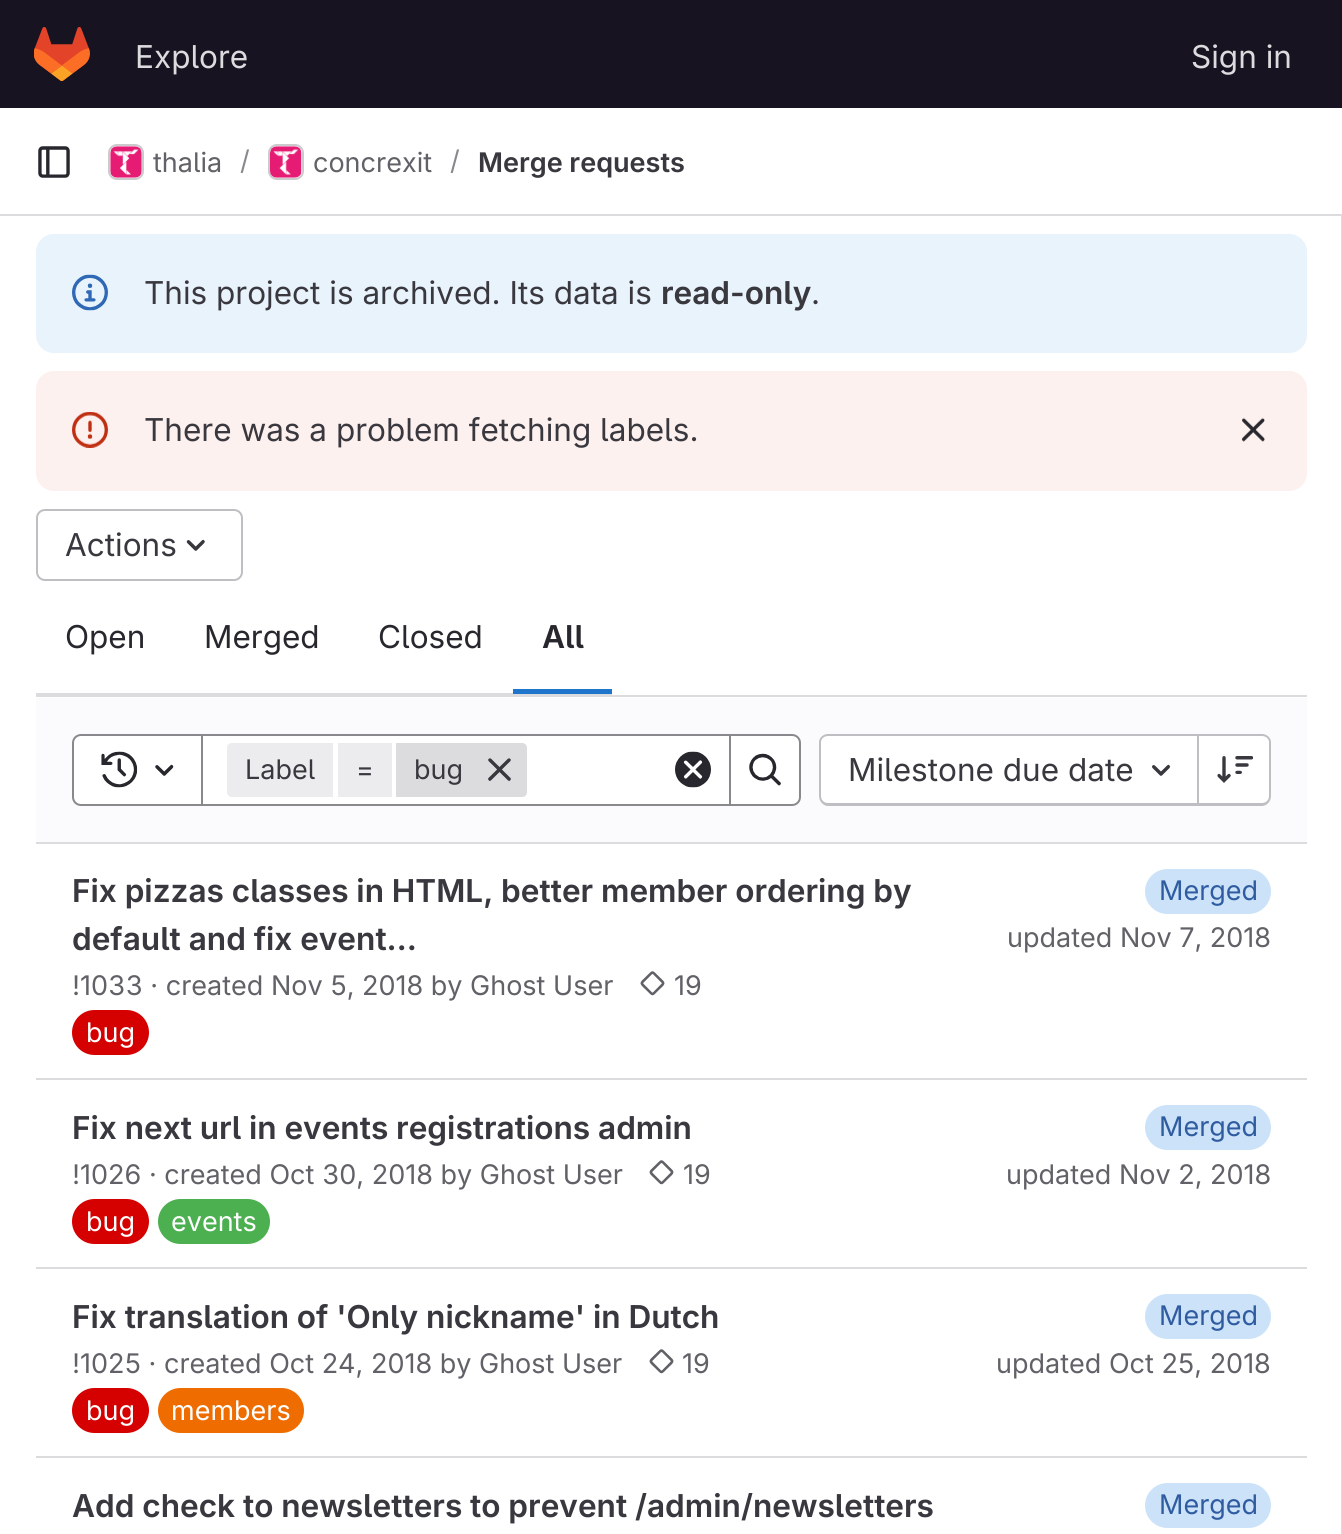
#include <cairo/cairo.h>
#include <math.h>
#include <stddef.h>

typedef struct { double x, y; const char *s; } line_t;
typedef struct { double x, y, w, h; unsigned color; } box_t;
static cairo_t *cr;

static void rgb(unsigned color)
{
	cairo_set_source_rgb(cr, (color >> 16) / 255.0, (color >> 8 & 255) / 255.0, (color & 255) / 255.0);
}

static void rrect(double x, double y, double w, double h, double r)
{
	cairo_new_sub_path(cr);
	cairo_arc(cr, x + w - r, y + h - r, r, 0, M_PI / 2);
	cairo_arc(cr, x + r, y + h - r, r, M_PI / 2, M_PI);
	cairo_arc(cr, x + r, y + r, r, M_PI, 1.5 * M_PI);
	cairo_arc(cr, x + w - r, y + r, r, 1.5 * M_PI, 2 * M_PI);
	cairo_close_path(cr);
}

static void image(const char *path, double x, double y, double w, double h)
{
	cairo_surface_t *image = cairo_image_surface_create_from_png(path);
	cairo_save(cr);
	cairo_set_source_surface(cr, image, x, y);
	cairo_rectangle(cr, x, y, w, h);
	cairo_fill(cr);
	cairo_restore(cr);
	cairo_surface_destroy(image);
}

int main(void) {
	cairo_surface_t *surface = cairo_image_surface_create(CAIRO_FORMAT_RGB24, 1342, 1534);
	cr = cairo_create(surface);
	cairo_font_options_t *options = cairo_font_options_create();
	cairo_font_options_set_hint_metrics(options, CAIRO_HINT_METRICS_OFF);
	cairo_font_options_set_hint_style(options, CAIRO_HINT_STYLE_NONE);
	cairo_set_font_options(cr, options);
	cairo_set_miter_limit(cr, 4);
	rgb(0xffffff);
	cairo_paint(cr);
	rgb(0x171321);
	cairo_rectangle(cr, 0, 0, 1342, 108);
	cairo_fill(cr);
	image("img/1.png", 34, 27, 56, 54);
	rgb(0xdcdcde);
	cairo_rectangle(cr, 0, 214, 1342, 2);
	cairo_fill(cr);
	image("img/2.png", 38, 146, 32, 32);
	rrect(109, 145, 34, 34, 8);
	cairo_stroke(cr);
	image("img/3.png", 110, 146, 32, 32);
	rrect(109, 145, 34, 34, 8);
	cairo_set_source_rgba(cr, 0.02, 0.02, 0.024, 0.08);
	cairo_stroke(cr);
	rrect(269, 145, 34, 34, 8);
	rgb(0xdcdcde);
	cairo_stroke(cr);
	image("img/4.png", 270, 146, 32, 32);
	rrect(269, 145, 34, 34, 8);
	cairo_set_source_rgba(cr, 0.02, 0.02, 0.024, 0.08);
	cairo_stroke(cr);
	rgb(0xe9f3fc);
	rrect(36, 234, 1271, 119, 18);
	cairo_fill(cr);
	image("img/5.png", 72, 274, 36, 37);
	rgb(0xfcf1ef);
	rrect(36, 371, 1271, 120, 18);
	cairo_fill(cr);
	image("img/6.png", 72, 412, 36, 36);
	image("img/7.png", 1241, 417, 24, 25);
	rgb(0xdcdcde);
	cairo_rectangle(cr, 36, 695, 1271, 2);
	cairo_fill(cr);
	rrect(37, 510, 205, 70, 8);
	rgb(0xbfbfc3);
	cairo_stroke(cr);
	image("img/8.png", 186, 539, 19, 12);
	{
		static const box_t items[] = {
			{36, 693, 576, 2, 0xdcdcde},
			{513, 689, 99, 5, 0x1f75cb},
			{1341, 216, 1, 1318, 0xdcdcde},
			{36, 698, 1271, 144, 0xfbfafd},
			{36, 842, 1271, 2, 0xdcdcde},
			{203, 736, 526, 68, 0xffffff},
		};
		for (size_t i = 0; i < sizeof items / sizeof *items; i++) {
			rgb(items[i].color);
			cairo_rectangle(cr, items[i].x, items[i].y, items[i].w, items[i].h);
			cairo_fill(cr);
		}
	}
	cairo_rectangle(cr, 201, 735, 529, 70);
	rgb(0x89888d);
	cairo_stroke(cr);
	rgb(0xffffff);
	cairo_new_path(cr);
	cairo_move_to(cr, 81, 735);
	cairo_line_to(cr, 202, 735);
	cairo_line_to(cr, 202, 805);
	cairo_line_to(cr, 81, 805);
	cairo_curve_to(cr, 76.5, 805, 73, 801.5, 73, 797);
	cairo_line_to(cr, 73, 743);
	cairo_curve_to(cr, 73, 738.5, 76.5, 735, 81, 735);
	cairo_close_path(cr);
	cairo_fill_preserve(cr);
	rgb(0x89888d);
	cairo_stroke(cr);
	image("img/9.png", 101, 751, 37, 37);
	image("img/10.png", 155, 764, 19, 12);
	rgb(0xececef);
	cairo_new_path(cr);
	cairo_move_to(cr, 232, 743);
	cairo_line_to(cr, 333, 743);
	cairo_line_to(cr, 333, 797);
	cairo_line_to(cr, 232, 797);
	cairo_curve_to(cr, 229, 797, 227, 795, 227, 792);
	cairo_line_to(cr, 227, 748);
	cairo_curve_to(cr, 227, 745, 229, 743, 232, 743);
	cairo_close_path(cr);
	cairo_fill(cr);
	cairo_rectangle(cr, 338, 743, 54, 54);
	cairo_fill(cr);
	rgb(0xdcdcde);
	cairo_new_path(cr);
	cairo_move_to(cr, 396, 743);
	cairo_line_to(cr, 522, 743);
	cairo_curve_to(cr, 525, 743, 527, 745, 527, 748);
	cairo_line_to(cr, 527, 792);
	cairo_curve_to(cr, 527, 795, 525, 797, 522, 797);
	cairo_line_to(cr, 396, 797);
	cairo_close_path(cr);
	cairo_fill(cr);
	image("img/11.png", 488, 758, 23, 23);
	image("img/12.png", 675, 751, 36, 37);
	rgb(0xffffff);
	cairo_new_path(cr);
	cairo_move_to(cr, 730, 735);
	cairo_line_to(cr, 792, 735);
	cairo_curve_to(cr, 796.5, 735, 800, 738.5, 800, 743);
	cairo_line_to(cr, 800, 797);
	cairo_curve_to(cr, 800, 801.5, 796.5, 805, 792, 805);
	cairo_line_to(cr, 730, 805);
	cairo_close_path(cr);
	cairo_fill_preserve(cr);
	rgb(0x89888d);
	cairo_stroke(cr);
	image("img/13.png", 749, 753, 32, 33);
	rgb(0xffffff);
	cairo_new_path(cr);
	cairo_move_to(cr, 828, 736);
	cairo_line_to(cr, 1197, 736);
	cairo_line_to(cr, 1197, 803);
	cairo_line_to(cr, 828, 803);
	cairo_curve_to(cr, 824, 803, 821, 800, 821, 796);
	cairo_line_to(cr, 821, 743);
	cairo_curve_to(cr, 821, 739, 824, 736, 828, 736);
	cairo_close_path(cr);
	cairo_fill(cr);
	rgb(0xbfbfc3);
	cairo_set_fill_rule(cr, CAIRO_FILL_RULE_EVEN_ODD);
	cairo_new_path(cr);
	cairo_move_to(cr, 828, 734);
	cairo_line_to(cr, 1197, 734);
	cairo_line_to(cr, 1197, 806);
	cairo_line_to(cr, 828, 806);
	cairo_curve_to(cr, 823, 806, 819, 801, 819, 796);
	cairo_line_to(cr, 819, 742);
	cairo_curve_to(cr, 819, 738, 823, 734, 828, 734);
	cairo_close_path(cr);
	cairo_move_to(cr, 828, 736);
	cairo_line_to(cr, 1197, 736);
	cairo_line_to(cr, 1197, 803);
	cairo_line_to(cr, 828, 803);
	cairo_curve_to(cr, 824, 803, 821, 800, 821, 796);
	cairo_line_to(cr, 821, 742);
	cairo_curve_to(cr, 821, 739, 824, 736, 828, 736);
	cairo_close_path(cr);
	cairo_fill(cr);
	image("img/14.png", 1152, 764, 19, 12);
	rgb(0xffffff);
	cairo_new_path(cr);
	cairo_move_to(cr, 1199, 736);
	cairo_line_to(cr, 1262, 736);
	cairo_curve_to(cr, 1266, 736, 1269, 739, 1269, 743);
	cairo_line_to(cr, 1269, 796);
	cairo_curve_to(cr, 1269, 800, 1266, 803, 1262, 803);
	cairo_line_to(cr, 1199, 803);
	cairo_close_path(cr);
	cairo_fill(cr);
	rgb(0xbfbfc3);
	cairo_new_path(cr);
	cairo_move_to(cr, 1199, 734);
	cairo_line_to(cr, 1262, 734);
	cairo_curve_to(cr, 1267, 734, 1271, 738, 1271, 742);
	cairo_line_to(cr, 1271, 796);
	cairo_curve_to(cr, 1271, 801, 1267, 806, 1262, 806);
	cairo_line_to(cr, 1199, 806);
	cairo_close_path(cr);
	cairo_move_to(cr, 1199, 736);
	cairo_line_to(cr, 1262, 736);
	cairo_curve_to(cr, 1266, 736, 1269, 739, 1269, 742);
	cairo_line_to(cr, 1269, 796);
	cairo_curve_to(cr, 1269, 800, 1266, 803, 1262, 803);
	cairo_line_to(cr, 1199, 803);
	cairo_close_path(cr);
	cairo_fill(cr);
	cairo_rectangle(cr, 1197, 734, 2, 72);
	cairo_fill(cr);
	image("img/15.png", 1217, 756, 37, 27);
	rgb(0xdcdcde);
	cairo_rectangle(cr, 36, 1078, 1271, 2);
	cairo_fill(cr);
	image("img/16.png", 640, 971, 25, 25);
	rgb(0xd50000);
	rrect(74.5, 1012.5, 72, 40, 20);
	cairo_fill_preserve(cr);
	cairo_set_line_width(cr, 5);
	cairo_stroke(cr);
	rgb(0xcbe2f9);
	rrect(1145, 869, 126, 45, 22.5);
	cairo_fill(cr);
	rgb(0xdcdcde);
	cairo_rectangle(cr, 36, 1267, 1271, 2);
	cairo_fill(cr);
	image("img/16.png", 649, 1160, 25, 25);
	rgb(0xd50000);
	rrect(74.5, 1201.5, 72, 40, 20);
	cairo_fill_preserve(cr);
	cairo_stroke(cr);
	rgb(0x4caf50);
	rrect(160.5, 1201.5, 107, 40, 20);
	cairo_fill_preserve(cr);
	cairo_stroke(cr);
	rgb(0xcbe2f9);
	rrect(1145, 1105, 126, 45, 22.5);
	cairo_fill(cr);
	rgb(0xdcdcde);
	cairo_rectangle(cr, 36, 1456, 1271, 2);
	cairo_fill(cr);
	image("img/16.png", 649, 1349, 25, 25);
	rgb(0xd50000);
	rrect(74.5, 1390.5, 72, 40, 20);
	cairo_fill_preserve(cr);
	cairo_stroke(cr);
	rgb(0xef6c00);
	rrect(160.5, 1390.5, 141, 40, 20);
	cairo_fill_preserve(cr);
	cairo_stroke(cr);
	rgb(0xcbe2f9);
	rrect(1145, 1294, 126, 45, 22.5);
	cairo_fill(cr);
	rrect(1145, 1483, 126, 45, 22.5);
	cairo_fill(cr);
	cairo_select_font_face(cr, "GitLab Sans", CAIRO_FONT_SLANT_NORMAL, CAIRO_FONT_WEIGHT_NORMAL);
	cairo_set_font_size(cr, 31.5);
	rgb(0xdcdcde);
	cairo_move_to(cr, 135, 68);
	cairo_show_text(cr, "Explore");
	cairo_move_to(cr, 1191, 68);
	cairo_show_text(cr, "Sign in");
	cairo_set_font_size(cr, 27);
	rgb(0x626168);
	cairo_move_to(cr, 153, 172);
	cairo_show_text(cr, "thalia");
	rgb(0x89888d);
	cairo_move_to(cr, 240, 170);
	cairo_show_text(cr, "/");
	rgb(0x626168);
	cairo_move_to(cr, 313, 172);
	cairo_show_text(cr, "concrexit");
	rgb(0x89888d);
	cairo_move_to(cr, 450, 170);
	cairo_show_text(cr, "/");
	cairo_select_font_face(cr, "GitLab Sans SemiBold", CAIRO_FONT_SLANT_NORMAL, CAIRO_FONT_WEIGHT_NORMAL);
	rgb(0x3a383f);
	cairo_move_to(cr, 478, 172);
	cairo_show_text(cr, "Merge requests");
	cairo_select_font_face(cr, "GitLab Sans", CAIRO_FONT_SLANT_NORMAL, CAIRO_FONT_WEIGHT_NORMAL);
	cairo_set_font_size(cr, 31.5);
	cairo_move_to(cr, 144, 304);
	cairo_show_text(cr, "This project is archived. Its data is");
	cairo_select_font_face(cr, "GitLab Sans SemiBold", CAIRO_FONT_SLANT_NORMAL, CAIRO_FONT_WEIGHT_NORMAL);
	cairo_move_to(cr, 661, 304);
	cairo_show_text(cr, "read-only");
	cairo_select_font_face(cr, "GitLab Sans", CAIRO_FONT_SLANT_NORMAL, CAIRO_FONT_WEIGHT_NORMAL);
	{
		static const line_t items[] = {
			{811, 304, "."},
			{144, 441, "There was a problem fetching labels."},
			{65, 556, "Actions"},
		};
		for (size_t i = 0; i < sizeof items / sizeof *items; i++) {
			cairo_move_to(cr, items[i].x, items[i].y);
			cairo_show_text(cr, items[i].s);
		}
	}
	rgb(0x28272d);
	{
		static const line_t items[] = {
			{65, 648, "Open"},
			{204, 648, "Merged"},
			{378, 648, "Closed"},
		};
		for (size_t i = 0; i < sizeof items / sizeof *items; i++) {
			cairo_move_to(cr, items[i].x, items[i].y);
			cairo_show_text(cr, items[i].s);
		}
	}
	cairo_select_font_face(cr, "GitLab Sans SemiBold", CAIRO_FONT_SLANT_NORMAL, CAIRO_FONT_WEIGHT_NORMAL);
	cairo_move_to(cr, 542, 648);
	cairo_show_text(cr, "All");
	cairo_select_font_face(cr, "GitLab Sans", CAIRO_FONT_SLANT_NORMAL, CAIRO_FONT_WEIGHT_NORMAL);
	cairo_set_font_size(cr, 27);
	rgb(0x3a383f);
	{
		static const line_t items[] = {
			{245, 779, "Label"},
			{356, 779, "="},
			{414, 779, "bug"},
		};
		for (size_t i = 0; i < sizeof items / sizeof *items; i++) {
			cairo_move_to(cr, items[i].x, items[i].y);
			cairo_show_text(cr, items[i].s);
		}
	}
	cairo_set_font_size(cr, 31.5);
	cairo_move_to(cr, 848, 781);
	cairo_show_text(cr, "Milestone due date");
	cairo_select_font_face(cr, "GitLab Sans SemiBold", CAIRO_FONT_SLANT_NORMAL, CAIRO_FONT_WEIGHT_NORMAL);
	cairo_move_to(cr, 72, 902);
	cairo_show_text(cr, "Fix pizzas classes in HTML, better member ordering by");
	cairo_move_to(cr, 72, 950);
	cairo_show_text(cr, "default and fix event…");
	cairo_select_font_face(cr, "GitLab Sans", CAIRO_FONT_SLANT_NORMAL, CAIRO_FONT_WEIGHT_NORMAL);
	cairo_set_font_size(cr, 27);
	rgb(0x626168);
	cairo_move_to(cr, 72, 995);
	cairo_show_text(cr, "!1033 · created Nov 5, 2018 by Ghost User");
	cairo_move_to(cr, 674, 995);
	cairo_show_text(cr, "19");
	rgb(0xffffff);
	cairo_move_to(cr, 86, 1042);
	cairo_show_text(cr, "bug");
	rgb(0x2f5ca0);
	cairo_move_to(cr, 1159, 900);
	cairo_show_text(cr, "Merged");
	rgb(0x626168);
	cairo_move_to(cr, 1007, 947);
	cairo_show_text(cr, "updated Nov 7, 2018");
	cairo_select_font_face(cr, "GitLab Sans SemiBold", CAIRO_FONT_SLANT_NORMAL, CAIRO_FONT_WEIGHT_NORMAL);
	cairo_set_font_size(cr, 31.5);
	rgb(0x3a383f);
	cairo_move_to(cr, 72, 1139);
	cairo_show_text(cr, "Fix next url in events registrations admin");
	cairo_select_font_face(cr, "GitLab Sans", CAIRO_FONT_SLANT_NORMAL, CAIRO_FONT_WEIGHT_NORMAL);
	cairo_set_font_size(cr, 27);
	rgb(0x626168);
	cairo_move_to(cr, 72, 1184);
	cairo_show_text(cr, "!1026 · created Oct 30, 2018 by Ghost User");
	cairo_move_to(cr, 683, 1184);
	cairo_show_text(cr, "19");
	rgb(0xffffff);
	cairo_move_to(cr, 86, 1231);
	cairo_show_text(cr, "bug");
	cairo_move_to(cr, 171, 1231);
	cairo_show_text(cr, "events");
	rgb(0x2f5ca0);
	cairo_move_to(cr, 1159, 1136);
	cairo_show_text(cr, "Merged");
	rgb(0x626168);
	cairo_move_to(cr, 1006, 1184);
	cairo_show_text(cr, "updated Nov 2, 2018");
	cairo_select_font_face(cr, "GitLab Sans SemiBold", CAIRO_FONT_SLANT_NORMAL, CAIRO_FONT_WEIGHT_NORMAL);
	cairo_set_font_size(cr, 31.5);
	rgb(0x3a383f);
	cairo_move_to(cr, 72, 1328);
	cairo_show_text(cr, "Fix translation of 'Only nickname' in Dutch");
	cairo_select_font_face(cr, "GitLab Sans", CAIRO_FONT_SLANT_NORMAL, CAIRO_FONT_WEIGHT_NORMAL);
	cairo_set_font_size(cr, 27);
	rgb(0x626168);
	cairo_move_to(cr, 72, 1373);
	cairo_show_text(cr, "!1025 · created Oct 24, 2018 by Ghost User");
	cairo_move_to(cr, 682, 1373);
	cairo_show_text(cr, "19");
	rgb(0xffffff);
	cairo_move_to(cr, 86, 1420);
	cairo_show_text(cr, "bug");
	cairo_move_to(cr, 171, 1420);
	cairo_show_text(cr, "members");
	rgb(0x2f5ca0);
	cairo_move_to(cr, 1159, 1325);
	cairo_show_text(cr, "Merged");
	rgb(0x626168);
	cairo_move_to(cr, 996, 1373);
	cairo_show_text(cr, "updated Oct 25, 2018");
	cairo_select_font_face(cr, "GitLab Sans SemiBold", CAIRO_FONT_SLANT_NORMAL, CAIRO_FONT_WEIGHT_NORMAL);
	cairo_set_font_size(cr, 31.5);
	rgb(0x3a383f);
	cairo_move_to(cr, 72, 1517);
	cairo_show_text(cr, "Add check to newsletters to prevent /admin/newsletters");
	cairo_select_font_face(cr, "GitLab Sans", CAIRO_FONT_SLANT_NORMAL, CAIRO_FONT_WEIGHT_NORMAL);
	cairo_set_font_size(cr, 27);
	rgb(0x2f5ca0);
	cairo_move_to(cr, 1159, 1514);
	cairo_show_text(cr, "Merged");
	cairo_surface_write_to_png(surface, "page.png");
	cairo_font_options_destroy(options);
	cairo_destroy(cr);
	cairo_surface_destroy(surface);
	return 0;
}
